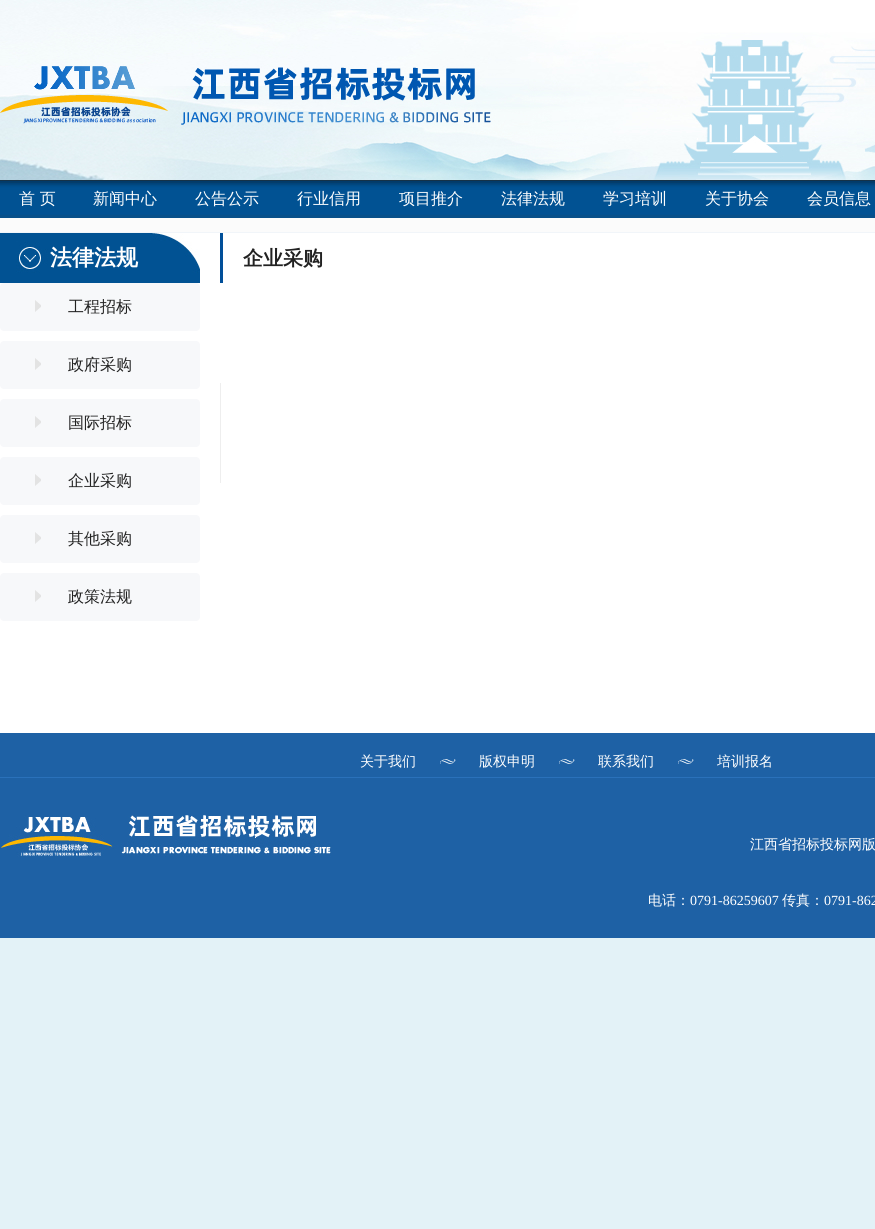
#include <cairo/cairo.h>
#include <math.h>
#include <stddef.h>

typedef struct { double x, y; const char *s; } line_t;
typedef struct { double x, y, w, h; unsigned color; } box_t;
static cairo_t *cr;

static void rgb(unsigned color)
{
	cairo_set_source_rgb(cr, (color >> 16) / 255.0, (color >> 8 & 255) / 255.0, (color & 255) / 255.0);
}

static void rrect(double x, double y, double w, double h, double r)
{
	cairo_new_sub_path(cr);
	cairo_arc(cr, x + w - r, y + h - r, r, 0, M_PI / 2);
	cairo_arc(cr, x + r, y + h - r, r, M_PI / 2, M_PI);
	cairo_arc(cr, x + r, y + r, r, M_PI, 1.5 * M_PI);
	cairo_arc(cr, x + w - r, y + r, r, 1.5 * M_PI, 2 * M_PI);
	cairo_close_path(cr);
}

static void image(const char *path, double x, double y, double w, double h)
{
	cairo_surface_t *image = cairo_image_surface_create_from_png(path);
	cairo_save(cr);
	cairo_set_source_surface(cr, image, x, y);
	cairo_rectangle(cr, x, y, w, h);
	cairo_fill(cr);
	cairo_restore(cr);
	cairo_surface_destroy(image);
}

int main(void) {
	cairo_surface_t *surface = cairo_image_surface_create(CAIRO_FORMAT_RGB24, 875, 1229);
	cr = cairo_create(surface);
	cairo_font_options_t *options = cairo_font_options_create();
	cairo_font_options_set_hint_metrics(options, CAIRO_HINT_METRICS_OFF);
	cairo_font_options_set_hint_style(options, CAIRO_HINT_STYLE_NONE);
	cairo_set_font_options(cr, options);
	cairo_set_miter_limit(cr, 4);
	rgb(0xe3f2f7);
	cairo_paint(cr);
	image("img/1.png", 0, 0, 875, 180);
	image("img/2.png", 0, 180, 875, 38);
	{
		static const box_t items[] = {
			{0, 218, 875, 14, 0xfbfbfb},
			{0, 232, 875, 1, 0xf1f5f9},
			{0, 233, 875, 500, 0xffffff},
		};
		for (size_t i = 0; i < sizeof items / sizeof *items; i++) {
			rgb(items[i].color);
			cairo_rectangle(cr, items[i].x, items[i].y, items[i].w, items[i].h);
			cairo_fill(cr);
		}
	}
	image("img/3.png", 0, 233, 200, 50);
	rgb(0xf7f8fa);
	rrect(0, 283, 200, 48, 4);
	cairo_fill(cr);
	image("img/4.png", 35, 300, 6, 12);
	rrect(0, 341, 200, 48, 4);
	cairo_fill(cr);
	image("img/4.png", 35, 358, 6, 12);
	rrect(0, 399, 200, 48, 4);
	cairo_fill(cr);
	image("img/4.png", 35, 416, 6, 12);
	rrect(0, 457, 200, 48, 4);
	cairo_fill(cr);
	image("img/4.png", 35, 474, 6, 12);
	rrect(0, 515, 200, 48, 4);
	cairo_fill(cr);
	image("img/4.png", 35, 532, 6, 12);
	rrect(0, 573, 200, 48, 4);
	cairo_fill(cr);
	image("img/4.png", 35, 590, 6, 12);
	{
		static const box_t items[] = {
			{220, 233, 3, 50, 0x014f99},
			{220, 383, 1, 100, 0xeeeeee},
			{0, 733, 875, 205, 0x1e61a5},
		};
		for (size_t i = 0; i < sizeof items / sizeof *items; i++) {
			rgb(items[i].color);
			cairo_rectangle(cr, items[i].x, items[i].y, items[i].w, items[i].h);
			cairo_fill(cr);
		}
	}
	image("img/5.png", 440, 759, 16, 5);
	image("img/5.png", 559, 759, 16, 5);
	image("img/5.png", 678, 759, 16, 5);
	rgb(0x2a71ba);
	cairo_rectangle(cr, 0, 777, 875, 1);
	cairo_fill(cr);
	image("img/6.png", 1, 815, 330, 42);
	cairo_select_font_face(cr, "WenQuanYi Zen Hei Medium", CAIRO_FONT_SLANT_NORMAL, CAIRO_FONT_WEIGHT_NORMAL);
	cairo_set_font_size(cr, 16);
	rgb(0xffffff);
	{
		static const line_t items[] = {
			{19, 204, "首 页"},
			{93, 204, "新闻中心"},
			{195, 204, "公告公示"},
			{297, 204, "行业信用"},
			{399, 204, "项目推介"},
			{501, 204, "法律法规"},
			{603, 204, "学习培训"},
			{705, 204, "关于协会"},
			{807, 204, "会员信息"},
		};
		for (size_t i = 0; i < sizeof items / sizeof *items; i++) {
			cairo_move_to(cr, items[i].x, items[i].y);
			cairo_show_text(cr, items[i].s);
		}
	}
	cairo_select_font_face(cr, "WenQuanYi Zen Hei", CAIRO_FONT_SLANT_NORMAL, CAIRO_FONT_WEIGHT_BOLD);
	cairo_set_font_size(cr, 22);
	cairo_move_to(cr, 50, 265);
	cairo_show_text(cr, "法律法规");
	cairo_select_font_face(cr, "WenQuanYi Zen Hei Medium", CAIRO_FONT_SLANT_NORMAL, CAIRO_FONT_WEIGHT_NORMAL);
	cairo_set_font_size(cr, 16);
	rgb(0x222222);
	{
		static const line_t items[] = {
			{68, 312, "工程招标"},
			{68, 370, "政府采购"},
			{68, 428, "国际招标"},
			{68, 486, "企业采购"},
			{68, 544, "其他采购"},
			{68, 602, "政策法规"},
		};
		for (size_t i = 0; i < sizeof items / sizeof *items; i++) {
			cairo_move_to(cr, items[i].x, items[i].y);
			cairo_show_text(cr, items[i].s);
		}
	}
	cairo_select_font_face(cr, "WenQuanYi Zen Hei", CAIRO_FONT_SLANT_NORMAL, CAIRO_FONT_WEIGHT_BOLD);
	cairo_set_font_size(cr, 20);
	cairo_move_to(cr, 243, 265);
	cairo_show_text(cr, "企业采购");
	cairo_select_font_face(cr, "WenQuanYi Zen Hei Medium", CAIRO_FONT_SLANT_NORMAL, CAIRO_FONT_WEIGHT_NORMAL);
	cairo_set_font_size(cr, 14);
	rgb(0xffffff);
	{
		static const line_t items[] = {
			{360, 766, "关于我们"},
			{479, 766, "版权申明"},
			{598, 766, "联系我们"},
			{717, 766, "培训报名"},
			{750, 849, "江西省招标投标网版"},
			{648, 905, "电话："},
		};
		for (size_t i = 0; i < sizeof items / sizeof *items; i++) {
			cairo_move_to(cr, items[i].x, items[i].y);
			cairo_show_text(cr, items[i].s);
		}
	}
	cairo_select_font_face(cr, "Liberation Serif", CAIRO_FONT_SLANT_NORMAL, CAIRO_FONT_WEIGHT_NORMAL);
	cairo_move_to(cr, 690, 905);
	cairo_show_text(cr, "0791-86259607");
	cairo_select_font_face(cr, "WenQuanYi Zen Hei Medium", CAIRO_FONT_SLANT_NORMAL, CAIRO_FONT_WEIGHT_NORMAL);
	cairo_move_to(cr, 782, 905);
	cairo_show_text(cr, "传真：");
	cairo_select_font_face(cr, "Liberation Serif", CAIRO_FONT_SLANT_NORMAL, CAIRO_FONT_WEIGHT_NORMAL);
	cairo_move_to(cr, 824, 905);
	cairo_show_text(cr, "0791-862");
	cairo_surface_write_to_png(surface, "page.png");
	cairo_font_options_destroy(options);
	cairo_destroy(cr);
	cairo_surface_destroy(surface);
	return 0;
}
